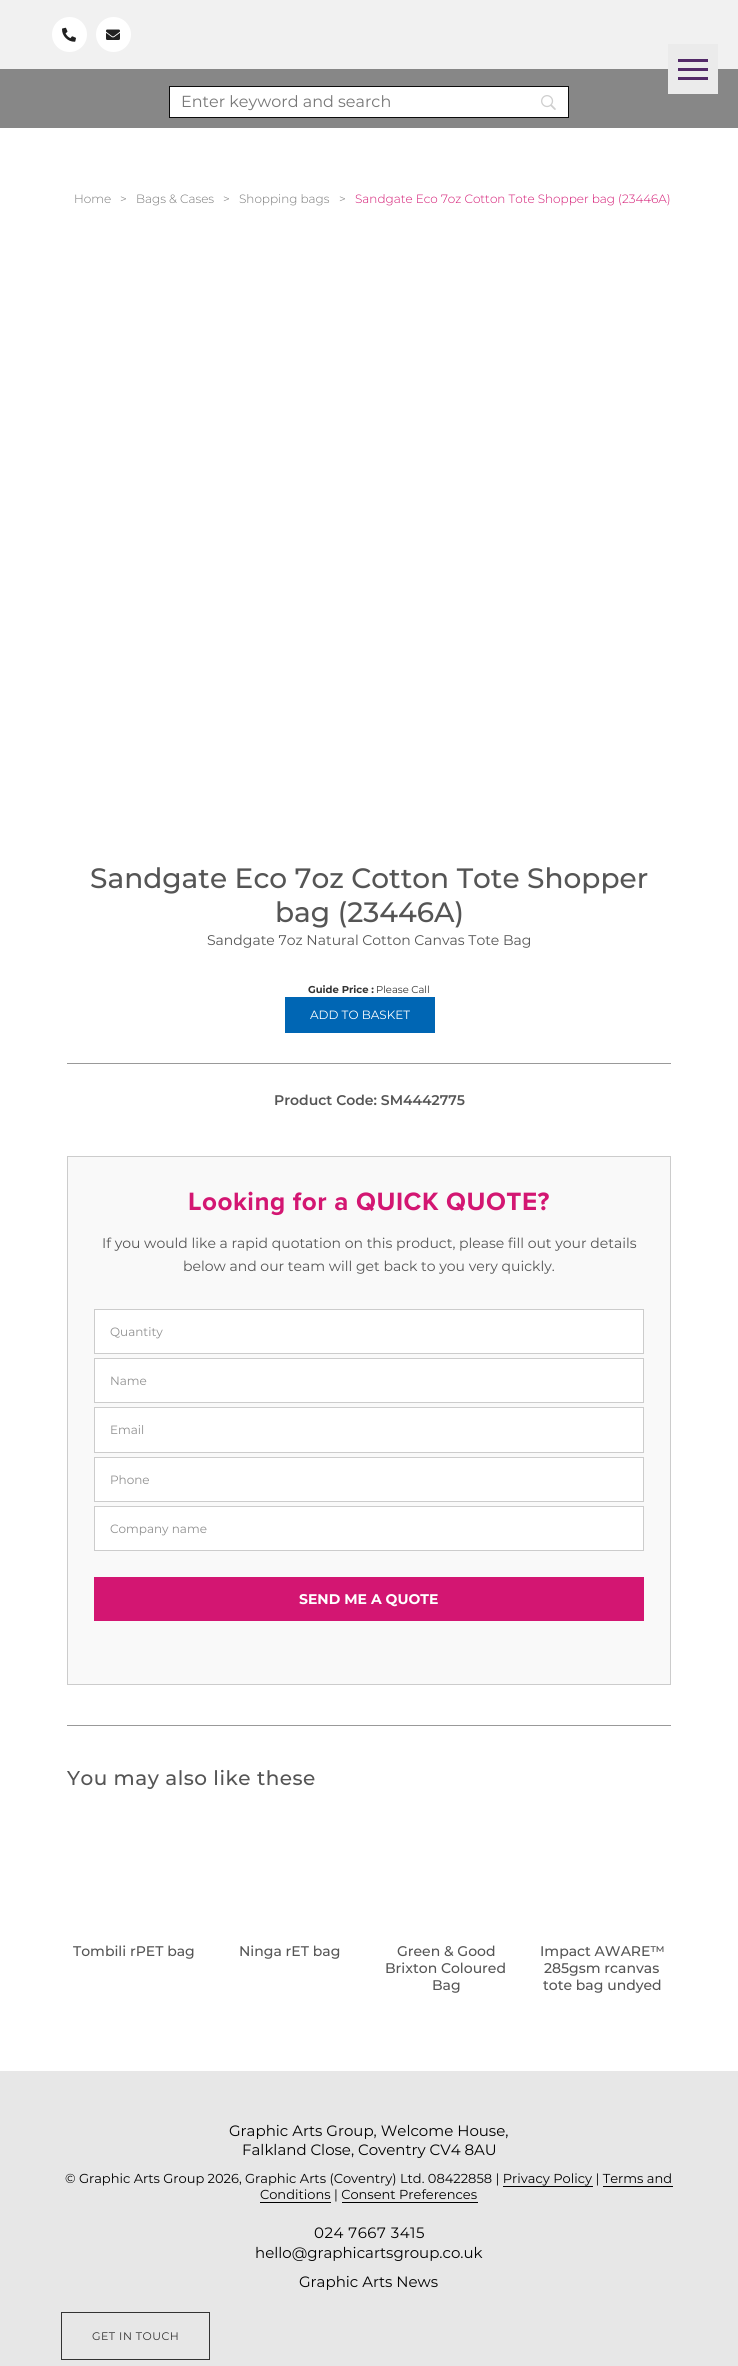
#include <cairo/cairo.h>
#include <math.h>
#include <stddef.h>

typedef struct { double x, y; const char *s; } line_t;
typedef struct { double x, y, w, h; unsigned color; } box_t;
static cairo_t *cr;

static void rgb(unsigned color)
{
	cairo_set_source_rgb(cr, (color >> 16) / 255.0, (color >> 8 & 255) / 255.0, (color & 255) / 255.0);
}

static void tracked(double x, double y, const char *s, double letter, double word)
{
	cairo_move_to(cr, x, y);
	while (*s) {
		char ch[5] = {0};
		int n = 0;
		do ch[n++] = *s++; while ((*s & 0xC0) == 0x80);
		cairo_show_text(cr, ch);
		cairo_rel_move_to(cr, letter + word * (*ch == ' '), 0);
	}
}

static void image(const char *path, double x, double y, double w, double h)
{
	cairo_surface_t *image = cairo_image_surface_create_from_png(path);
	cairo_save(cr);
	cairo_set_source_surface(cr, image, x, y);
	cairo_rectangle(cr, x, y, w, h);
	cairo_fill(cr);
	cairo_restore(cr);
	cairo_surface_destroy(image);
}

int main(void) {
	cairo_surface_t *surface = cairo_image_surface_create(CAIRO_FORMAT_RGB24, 738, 2366);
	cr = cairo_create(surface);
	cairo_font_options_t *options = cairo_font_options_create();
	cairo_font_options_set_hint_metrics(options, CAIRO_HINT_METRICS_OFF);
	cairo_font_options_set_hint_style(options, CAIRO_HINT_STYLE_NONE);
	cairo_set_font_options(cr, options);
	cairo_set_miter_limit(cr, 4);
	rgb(0xffffff);
	cairo_paint(cr);
	rgb(0xf1f1f1);
	cairo_rectangle(cr, 0, 0, 738, 69);
	cairo_fill(cr);
	rgb(0xffffff);
	cairo_arc(cr, 69.5, 34.5, 17.5, 0, 2 * M_PI);
	cairo_fill(cr);
	image("img/1.png", 62, 27, 14, 15);
	cairo_arc(cr, 113.5, 34.5, 17.5, 0, 2 * M_PI);
	cairo_fill(cr);
	image("img/2.png", 106, 29, 14, 11);
	{
		static const box_t items[] = {
			{0, 69, 738, 59, 0x878787},
			{668, 44, 50, 50, 0xebebeb},
			{678, 59, 30, 3, 0x532968},
			{678, 68, 30, 3, 0x532968},
			{678, 77, 30, 3, 0x532968},
			{170, 87, 398, 30, 0xffffff},
		};
		for (size_t i = 0; i < sizeof items / sizeof *items; i++) {
			rgb(items[i].color);
			cairo_rectangle(cr, items[i].x, items[i].y, items[i].w, items[i].h);
			cairo_fill(cr);
		}
	}
	image("img/3.png", 541, 95, 15, 15);
	cairo_rectangle(cr, 169.5, 86.5, 399, 31);
	rgb(0x0c0c0c);
	cairo_set_line_width(cr, 1);
	cairo_stroke(cr);
	rgb(0x0066b4);
	cairo_rectangle(cr, 285, 997, 150, 36);
	cairo_fill(cr);
	rgb(0x999999);
	cairo_rectangle(cr, 67, 1063, 604, 1);
	cairo_fill(cr);
	rgb(0xf9f9f9);
	cairo_rectangle(cr, 67.5, 1156.5, 603, 528);
	cairo_fill_preserve(cr);
	rgb(0xcccccc);
	cairo_stroke(cr);
	rgb(0xffffff);
	cairo_rectangle(cr, 94.5, 1309.5, 549, 44);
	cairo_fill_preserve(cr);
	rgb(0xcccccc);
	cairo_stroke(cr);
	rgb(0xffffff);
	cairo_rectangle(cr, 94.5, 1358.5, 549, 44);
	cairo_fill_preserve(cr);
	rgb(0xcccccc);
	cairo_stroke(cr);
	rgb(0xffffff);
	cairo_rectangle(cr, 94.5, 1407.5, 549, 45);
	cairo_fill_preserve(cr);
	rgb(0xcccccc);
	cairo_stroke(cr);
	rgb(0xffffff);
	cairo_rectangle(cr, 94.5, 1457.5, 549, 44);
	cairo_fill_preserve(cr);
	rgb(0xcccccc);
	cairo_stroke(cr);
	rgb(0xffffff);
	cairo_rectangle(cr, 94.5, 1506.5, 549, 44);
	cairo_fill_preserve(cr);
	rgb(0xcccccc);
	cairo_stroke(cr);
	{
		static const box_t items[] = {
			{94, 1577, 550, 44, 0xd31672},
			{67, 1725, 604, 1, 0x999999},
			{0, 2071, 738, 295, 0xe7e7e7},
			{503, 2186, 90, 1, 0x000000},
			{603, 2186, 70, 1, 0x000000},
			{260, 2202, 71, 1, 0x000000},
			{342, 2202, 136, 1, 0x000000},
		};
		for (size_t i = 0; i < sizeof items / sizeof *items; i++) {
			rgb(items[i].color);
			cairo_rectangle(cr, items[i].x, items[i].y, items[i].w, items[i].h);
			cairo_fill(cr);
		}
	}
	cairo_rectangle(cr, 61.5, 2312.5, 148, 47);
	rgb(0x333333);
	cairo_stroke(cr);
	cairo_select_font_face(cr, "Montserrat", CAIRO_FONT_SLANT_NORMAL, CAIRO_FONT_WEIGHT_NORMAL);
	cairo_set_font_size(cr, 16);
	rgb(0x777777);
	cairo_move_to(cr, 181, 107);
	cairo_show_text(cr, "Enter keyword and search");
	cairo_select_font_face(cr, "Montserrat Light", CAIRO_FONT_SLANT_NORMAL, CAIRO_FONT_WEIGHT_NORMAL);
	cairo_set_font_size(cr, 12);
	{
		static const line_t items[] = {
			{74, 203, "Home"},
			{120, 203, ">"},
			{136, 203, "Bags & Cases"},
			{223, 203, ">"},
			{239, 203, "Shopping bags"},
			{339, 203, ">"},
		};
		for (size_t i = 0; i < sizeof items / sizeof *items; i++) {
			cairo_move_to(cr, items[i].x, items[i].y);
			cairo_show_text(cr, items[i].s);
		}
	}
	rgb(0xd31672);
	cairo_move_to(cr, 355, 203);
	cairo_show_text(cr, "Sandgate Eco 7oz Cotton Tote Shopper bag (23446A)");
	cairo_select_font_face(cr, "Montserrat Medium", CAIRO_FONT_SLANT_NORMAL, CAIRO_FONT_WEIGHT_NORMAL);
	cairo_set_font_size(cr, 28);
	rgb(0x555555);
	cairo_move_to(cr, 90, 888);
	cairo_show_text(cr, "Sandgate Eco 7oz Cotton Tote Shopper");
	cairo_move_to(cr, 275, 922);
	cairo_show_text(cr, "bag (23446A)");
	cairo_select_font_face(cr, "Montserrat", CAIRO_FONT_SLANT_NORMAL, CAIRO_FONT_WEIGHT_NORMAL);
	cairo_set_font_size(cr, 14);
	cairo_move_to(cr, 207, 945);
	cairo_show_text(cr, "Sandgate 7oz Natural Cotton Canvas Tote Bag");
	cairo_select_font_face(cr, "Montserrat", CAIRO_FONT_SLANT_NORMAL, CAIRO_FONT_WEIGHT_BOLD);
	cairo_set_font_size(cr, 10);
	rgb(0x333333);
	cairo_move_to(cr, 308, 993);
	cairo_show_text(cr, "Guide Price :");
	cairo_select_font_face(cr, "Montserrat", CAIRO_FONT_SLANT_NORMAL, CAIRO_FONT_WEIGHT_NORMAL);
	cairo_move_to(cr, 376, 993);
	cairo_show_text(cr, "Please Call");
	cairo_set_font_size(cr, 12);
	rgb(0xffffff);
	cairo_move_to(cr, 310, 1019);
	cairo_show_text(cr, "ADD TO BASKET");
	cairo_select_font_face(cr, "Montserrat SemiBold", CAIRO_FONT_SLANT_NORMAL, CAIRO_FONT_WEIGHT_NORMAL);
	cairo_set_font_size(cr, 14);
	rgb(0x555555);
	cairo_move_to(cr, 274, 1105);
	cairo_show_text(cr, "Product Code: SM4442775");
	cairo_select_font_face(cr, "Proxima Nova", CAIRO_FONT_SLANT_NORMAL, CAIRO_FONT_WEIGHT_BOLD);
	cairo_set_font_size(cr, 26);
	rgb(0xd31672);
	tracked(188, 1210, "Looking for a QUICK QUOTE?", 0.5, 0);
	cairo_select_font_face(cr, "Montserrat", CAIRO_FONT_SLANT_NORMAL, CAIRO_FONT_WEIGHT_NORMAL);
	cairo_set_font_size(cr, 14);
	rgb(0x555555);
	cairo_move_to(cr, 102, 1248);
	cairo_show_text(cr, "If you would like a rapid quotation on this product, please fill out your details");
	cairo_move_to(cr, 183, 1271);
	cairo_show_text(cr, "below and our team will get back to you very quickly.");
	cairo_set_font_size(cr, 12);
	rgb(0x909090);
	{
		static const line_t items[] = {
			{110, 1336, "Quantity"},
			{110, 1385, "Name"},
			{110, 1434, "Email"},
			{110, 1484, "Phone"},
			{110, 1533, "Company name"},
		};
		for (size_t i = 0; i < sizeof items / sizeof *items; i++) {
			cairo_move_to(cr, items[i].x, items[i].y);
			cairo_show_text(cr, items[i].s);
		}
	}
	cairo_select_font_face(cr, "Montserrat", CAIRO_FONT_SLANT_NORMAL, CAIRO_FONT_WEIGHT_BOLD);
	cairo_set_font_size(cr, 14);
	rgb(0xffffff);
	cairo_move_to(cr, 299, 1604);
	cairo_show_text(cr, "SEND ME A QUOTE");
	cairo_select_font_face(cr, "Montserrat Medium", CAIRO_FONT_SLANT_NORMAL, CAIRO_FONT_WEIGHT_NORMAL);
	cairo_set_font_size(cr, 20);
	rgb(0x555555);
	tracked(67, 1785, "You may also like these", 0.5, 0);
	cairo_set_font_size(cr, 14);
	{
		static const line_t items[] = {
			{73, 1956, "Tombili rPET bag"},
			{239, 1956, "Ninga rET bag"},
			{397, 1956, "Green & Good"},
			{385, 1973, "Brixton Coloured"},
			{432, 1990, "Bag"},
			{540, 1956, "Impact AWARE™"},
			{544, 1973, "285gsm rcanvas"},
			{543, 1990, "tote bag undyed"},
		};
		for (size_t i = 0; i < sizeof items / sizeof *items; i++) {
			cairo_move_to(cr, items[i].x, items[i].y);
			cairo_show_text(cr, items[i].s);
		}
	}
	cairo_select_font_face(cr, "Montserrat", CAIRO_FONT_SLANT_NORMAL, CAIRO_FONT_WEIGHT_NORMAL);
	cairo_set_font_size(cr, 15);
	rgb(0x000000);
	cairo_move_to(cr, 229, 2136);
	cairo_show_text(cr, "Graphic Arts Group, Welcome House,");
	cairo_move_to(cr, 242, 2155);
	cairo_show_text(cr, "Falkland Close, Coventry CV4 8AU");
	cairo_set_font_size(cr, 13);
	cairo_move_to(cr, 65, 2183);
	cairo_show_text(cr, "© Graphic Arts Group 2026, Graphic Arts (Coventry) Ltd. 08422858 | Privacy Policy | Terms and");
	cairo_move_to(cr, 260, 2199);
	cairo_show_text(cr, "Conditions | Consent Preferences");
	cairo_set_font_size(cr, 15);
	tracked(314, 2238, "024 7667 3415", 0.5, 0);
	cairo_move_to(cr, 255, 2258);
	cairo_show_text(cr, "hello@graphicartsgroup.co.uk");
	cairo_move_to(cr, 299, 2287);
	cairo_show_text(cr, "Graphic Arts News");
	cairo_set_font_size(cr, 11);
	rgb(0x333333);
	tracked(92, 2340, "GET IN TOUCH", 0.5, 0);
	cairo_surface_write_to_png(surface, "page.png");
	cairo_font_options_destroy(options);
	cairo_destroy(cr);
	cairo_surface_destroy(surface);
	return 0;
}
